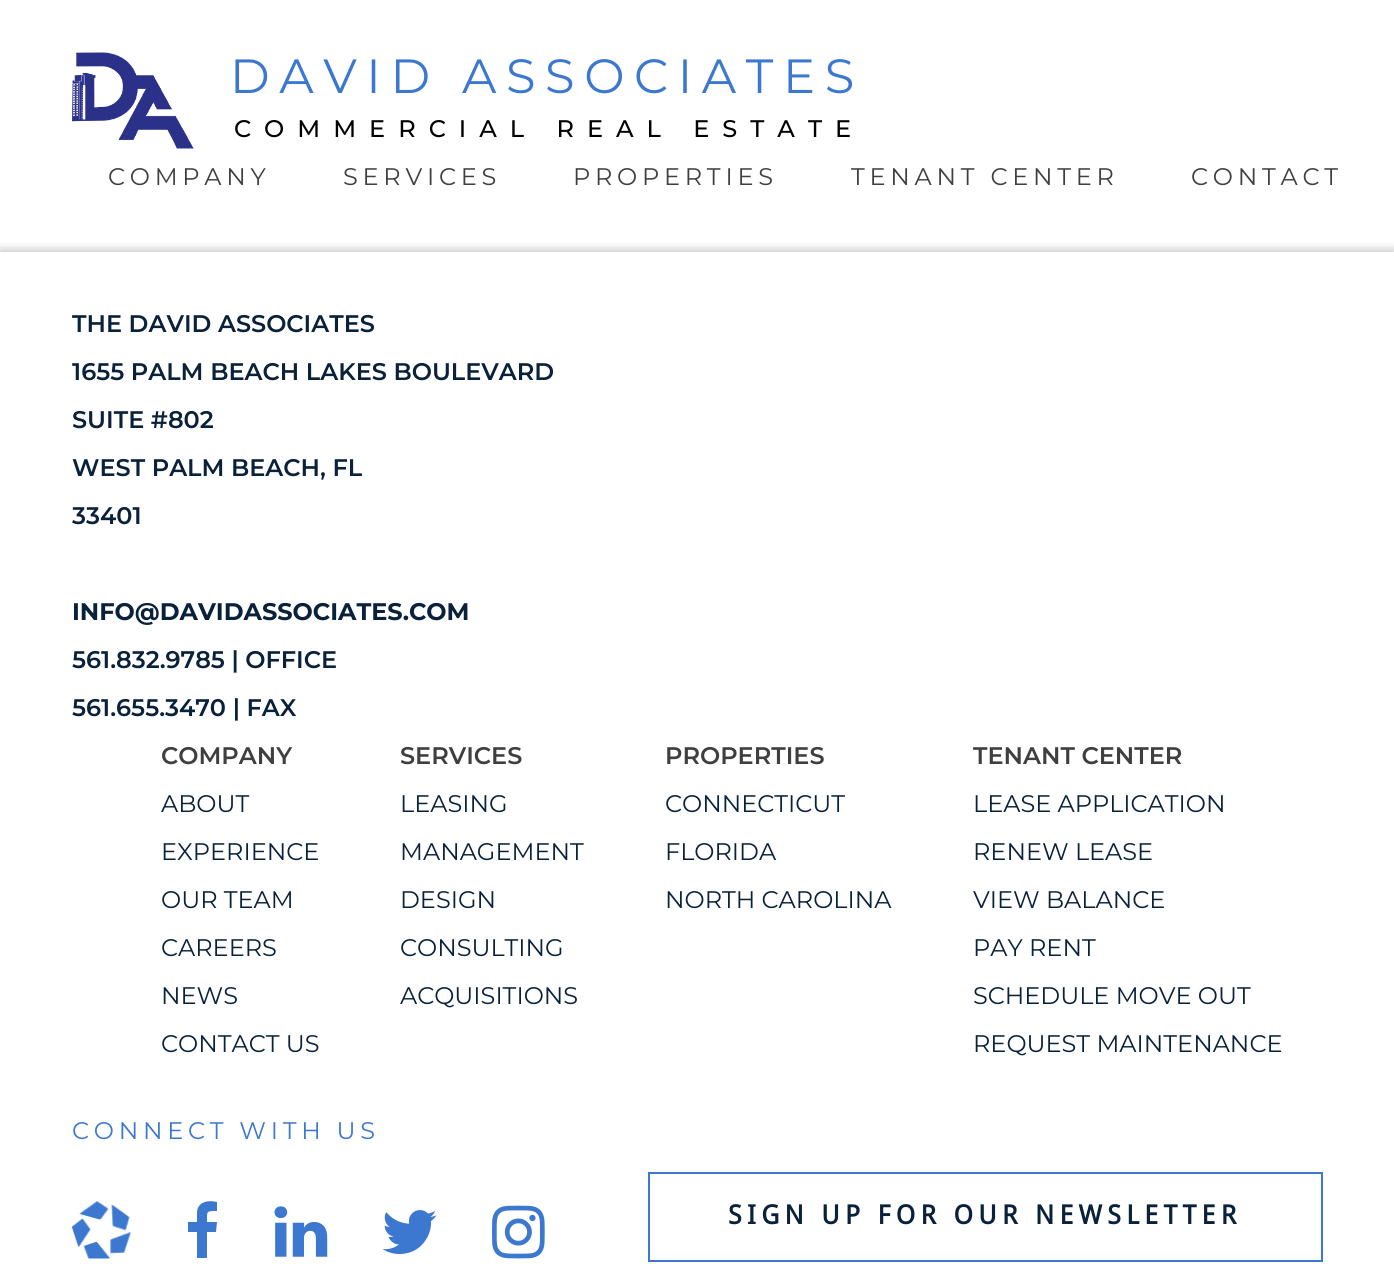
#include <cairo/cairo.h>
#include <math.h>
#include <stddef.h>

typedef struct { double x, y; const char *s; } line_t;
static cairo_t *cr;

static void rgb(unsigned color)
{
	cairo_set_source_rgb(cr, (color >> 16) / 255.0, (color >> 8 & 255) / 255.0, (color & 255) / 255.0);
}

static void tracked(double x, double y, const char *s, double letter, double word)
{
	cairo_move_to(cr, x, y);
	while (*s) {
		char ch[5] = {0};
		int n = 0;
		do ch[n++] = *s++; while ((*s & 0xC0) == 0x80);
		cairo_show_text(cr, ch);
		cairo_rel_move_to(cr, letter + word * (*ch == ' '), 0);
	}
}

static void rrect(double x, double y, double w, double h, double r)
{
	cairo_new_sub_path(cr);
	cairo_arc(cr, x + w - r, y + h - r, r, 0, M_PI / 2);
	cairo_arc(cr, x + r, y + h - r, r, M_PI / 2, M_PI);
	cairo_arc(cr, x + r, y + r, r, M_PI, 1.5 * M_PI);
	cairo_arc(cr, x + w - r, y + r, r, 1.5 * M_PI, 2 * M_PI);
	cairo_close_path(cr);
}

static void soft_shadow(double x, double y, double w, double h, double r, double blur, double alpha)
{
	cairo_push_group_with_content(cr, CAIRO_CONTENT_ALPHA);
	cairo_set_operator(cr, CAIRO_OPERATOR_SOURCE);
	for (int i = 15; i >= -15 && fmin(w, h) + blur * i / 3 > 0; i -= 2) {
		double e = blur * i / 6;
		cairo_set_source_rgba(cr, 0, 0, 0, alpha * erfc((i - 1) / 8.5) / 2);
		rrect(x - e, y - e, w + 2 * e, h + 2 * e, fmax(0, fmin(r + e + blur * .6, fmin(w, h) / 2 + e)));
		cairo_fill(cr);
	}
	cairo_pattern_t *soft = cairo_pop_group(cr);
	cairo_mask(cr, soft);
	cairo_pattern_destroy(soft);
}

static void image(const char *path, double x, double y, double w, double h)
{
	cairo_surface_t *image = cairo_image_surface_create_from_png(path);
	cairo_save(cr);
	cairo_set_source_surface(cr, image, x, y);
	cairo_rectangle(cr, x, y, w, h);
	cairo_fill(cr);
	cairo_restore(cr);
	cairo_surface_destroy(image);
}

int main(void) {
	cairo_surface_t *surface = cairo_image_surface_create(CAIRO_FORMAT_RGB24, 1394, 1267);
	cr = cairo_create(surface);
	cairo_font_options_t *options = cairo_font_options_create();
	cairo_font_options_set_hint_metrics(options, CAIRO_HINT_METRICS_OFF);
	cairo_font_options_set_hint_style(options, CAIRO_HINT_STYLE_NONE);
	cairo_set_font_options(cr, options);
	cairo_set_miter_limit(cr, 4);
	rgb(0xffffff);
	cairo_paint(cr);
	image("img/1.png", 72, 52, 122, 97);
	cairo_save(cr);
	cairo_rectangle(cr, 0, 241, 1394, 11);
	cairo_clip(cr);
	rgb(0xcccccc);
	soft_shadow(0, 249, 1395, 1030, 0, 4, 1);
	cairo_restore(cr);
	image("img/2.png", 72, 1201, 59, 58);
	rgb(0x3c78cf);
	cairo_new_path(cr);
	cairo_move_to(cr, 217, 1202);
	cairo_line_to(cr, 217, 1211);
	cairo_curve_to(cr, 206, 1211, 207, 1211, 207, 1222);
	cairo_line_to(cr, 217, 1222);
	cairo_line_to(cr, 216, 1232);
	cairo_line_to(cr, 207, 1232);
	cairo_line_to(cr, 207, 1258);
	cairo_line_to(cr, 197, 1258);
	cairo_line_to(cr, 197, 1232);
	cairo_line_to(cr, 188, 1232);
	cairo_line_to(cr, 188, 1222);
	cairo_line_to(cr, 197, 1222);
	cairo_line_to(cr, 197, 1212);
	cairo_curve_to(cr, 198, 1201, 209, 1200, 217, 1202);
	cairo_close_path(cr);
	cairo_fill(cr);
	image("img/3.png", 274, 1206, 54, 51);
	image("img/4.png", 382, 1210, 55, 44);
	image("img/5.png", 492, 1205, 53, 54);
	cairo_rectangle(cr, 649, 1173, 673, 88);
	cairo_stroke(cr);
	cairo_select_font_face(cr, "Montserrat", CAIRO_FONT_SLANT_NORMAL, CAIRO_FONT_WEIGHT_NORMAL);
	cairo_set_font_size(cr, 48);
	tracked(230, 93, "DAVID ASSOCIATES", 9.6, 0);
	cairo_select_font_face(cr, "Montserrat Medium", CAIRO_FONT_SLANT_NORMAL, CAIRO_FONT_WEIGHT_NORMAL);
	cairo_set_font_size(cr, 24);
	rgb(0x000000);
	tracked(234, 137, "COMMERCIAL REAL ESTATE", 13, 0);
	cairo_select_font_face(cr, "Montserrat", CAIRO_FONT_SLANT_NORMAL, CAIRO_FONT_WEIGHT_NORMAL);
	rgb(0x3f3f3f);
	{
		static const line_t items[] = {
			{108, 185, "COMPANY"},
			{343, 185, "SERVICES"},
			{573, 185, "PROPERTIES"},
			{851, 185, "TENANT CENTER"},
			{1191, 185, "CONTACT"},
		};
		for (size_t i = 0; i < sizeof items / sizeof *items; i++) {
			tracked(items[i].x, items[i].y, items[i].s, 4.75, 0);
		}
	}
	cairo_select_font_face(cr, "Montserrat SemiBold", CAIRO_FONT_SLANT_NORMAL, CAIRO_FONT_WEIGHT_NORMAL);
	rgb(0x09213a);
	{
		static const line_t items[] = {
			{72, 332, "THE DAVID ASSOCIATES"},
			{72, 380, "1655 PALM BEACH LAKES BOULEVARD"},
			{72, 428, "SUITE #802"},
			{72, 476, "WEST PALM BEACH, FL"},
			{72, 524, "33401"},
		};
		for (size_t i = 0; i < sizeof items / sizeof *items; i++) {
			cairo_move_to(cr, items[i].x, items[i].y);
			cairo_show_text(cr, items[i].s);
		}
	}
	cairo_select_font_face(cr, "Montserrat", CAIRO_FONT_SLANT_NORMAL, CAIRO_FONT_WEIGHT_BOLD);
	cairo_move_to(cr, 72, 620);
	cairo_show_text(cr, "INFO@DAVIDASSOCIATES.COM");
	cairo_select_font_face(cr, "Montserrat SemiBold", CAIRO_FONT_SLANT_NORMAL, CAIRO_FONT_WEIGHT_NORMAL);
	cairo_move_to(cr, 72, 668);
	cairo_show_text(cr, "561.832.9785 | OFFICE");
	cairo_move_to(cr, 72, 716);
	cairo_show_text(cr, "561.655.3470 | FAX");
	rgb(0x3f3f3f);
	cairo_move_to(cr, 161, 764);
	cairo_show_text(cr, "COMPANY");
	cairo_select_font_face(cr, "Montserrat", CAIRO_FONT_SLANT_NORMAL, CAIRO_FONT_WEIGHT_NORMAL);
	rgb(0x09213a);
	{
		static const line_t items[] = {
			{161, 812, "ABOUT"},
			{161, 860, "EXPERIENCE"},
			{161, 908, "OUR TEAM"},
			{161, 956, "CAREERS"},
			{161, 1004, "NEWS"},
			{161, 1052, "CONTACT US"},
		};
		for (size_t i = 0; i < sizeof items / sizeof *items; i++) {
			cairo_move_to(cr, items[i].x, items[i].y);
			cairo_show_text(cr, items[i].s);
		}
	}
	cairo_select_font_face(cr, "Montserrat SemiBold", CAIRO_FONT_SLANT_NORMAL, CAIRO_FONT_WEIGHT_NORMAL);
	rgb(0x3f3f3f);
	cairo_move_to(cr, 400, 764);
	cairo_show_text(cr, "SERVICES");
	cairo_select_font_face(cr, "Montserrat", CAIRO_FONT_SLANT_NORMAL, CAIRO_FONT_WEIGHT_NORMAL);
	rgb(0x09213a);
	{
		static const line_t items[] = {
			{400, 812, "LEASING"},
			{400, 860, "MANAGEMENT"},
			{400, 908, "DESIGN"},
			{400, 956, "CONSULTING"},
			{400, 1004, "ACQUISITIONS"},
		};
		for (size_t i = 0; i < sizeof items / sizeof *items; i++) {
			cairo_move_to(cr, items[i].x, items[i].y);
			cairo_show_text(cr, items[i].s);
		}
	}
	cairo_select_font_face(cr, "Montserrat SemiBold", CAIRO_FONT_SLANT_NORMAL, CAIRO_FONT_WEIGHT_NORMAL);
	rgb(0x3f3f3f);
	cairo_move_to(cr, 665, 764);
	cairo_show_text(cr, "PROPERTIES");
	cairo_select_font_face(cr, "Montserrat", CAIRO_FONT_SLANT_NORMAL, CAIRO_FONT_WEIGHT_NORMAL);
	rgb(0x09213a);
	{
		static const line_t items[] = {
			{665, 812, "CONNECTICUT"},
			{665, 860, "FLORIDA"},
			{665, 908, "NORTH CAROLINA"},
		};
		for (size_t i = 0; i < sizeof items / sizeof *items; i++) {
			cairo_move_to(cr, items[i].x, items[i].y);
			cairo_show_text(cr, items[i].s);
		}
	}
	cairo_select_font_face(cr, "Montserrat SemiBold", CAIRO_FONT_SLANT_NORMAL, CAIRO_FONT_WEIGHT_NORMAL);
	rgb(0x3f3f3f);
	cairo_move_to(cr, 973, 764);
	cairo_show_text(cr, "TENANT CENTER");
	cairo_select_font_face(cr, "Montserrat", CAIRO_FONT_SLANT_NORMAL, CAIRO_FONT_WEIGHT_NORMAL);
	rgb(0x09213a);
	{
		static const line_t items[] = {
			{973, 812, "LEASE APPLICATION"},
			{973, 860, "RENEW LEASE"},
			{973, 908, "VIEW BALANCE"},
			{973, 956, "PAY RENT"},
			{973, 1004, "SCHEDULE MOVE OUT"},
			{973, 1052, "REQUEST MAINTENANCE"},
		};
		for (size_t i = 0; i < sizeof items / sizeof *items; i++) {
			cairo_move_to(cr, items[i].x, items[i].y);
			cairo_show_text(cr, items[i].s);
		}
	}
	rgb(0x3c78cf);
	tracked(72, 1139, "CONNECT WITH US", 4.75, 0);
	cairo_select_font_face(cr, "Droid Sans", CAIRO_FONT_SLANT_NORMAL, CAIRO_FONT_WEIGHT_BOLD);
	cairo_set_font_size(cr, 26.4);
	rgb(0x09213a);
	tracked(728, 1224, "SIGN UP FOR OUR NEWSLETTER", 5.25, 0);
	cairo_surface_write_to_png(surface, "page.png");
	cairo_font_options_destroy(options);
	cairo_destroy(cr);
	cairo_surface_destroy(surface);
	return 0;
}
